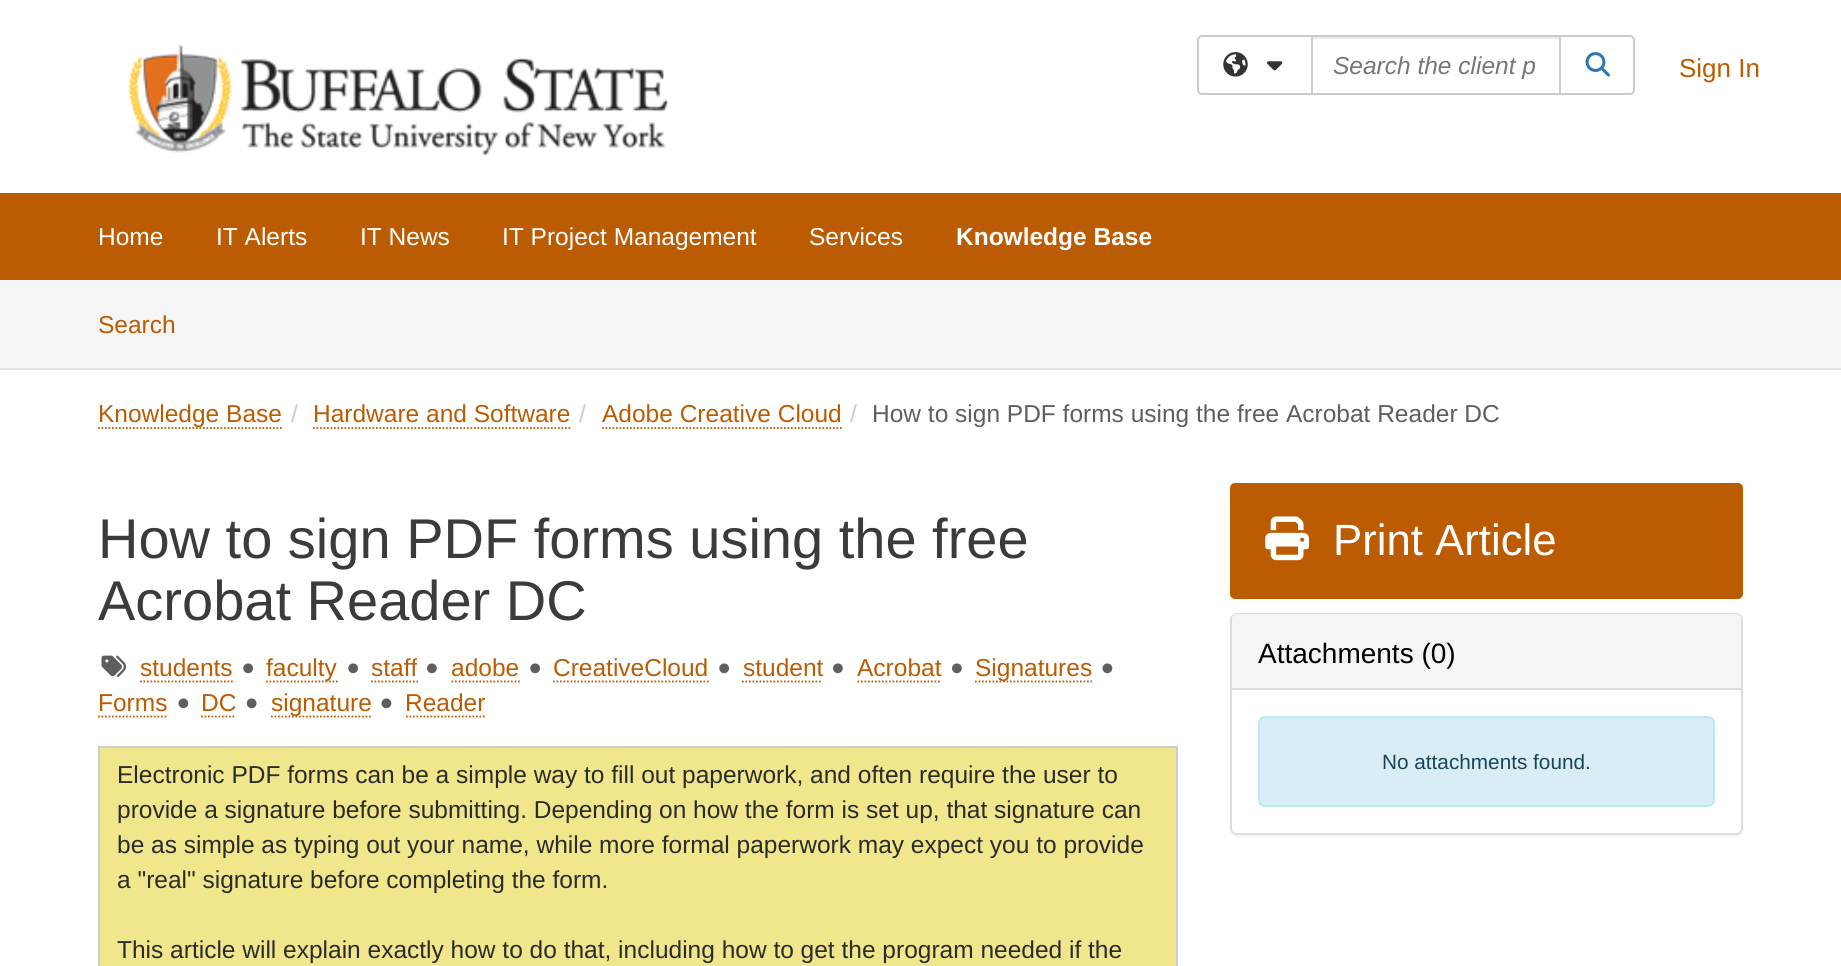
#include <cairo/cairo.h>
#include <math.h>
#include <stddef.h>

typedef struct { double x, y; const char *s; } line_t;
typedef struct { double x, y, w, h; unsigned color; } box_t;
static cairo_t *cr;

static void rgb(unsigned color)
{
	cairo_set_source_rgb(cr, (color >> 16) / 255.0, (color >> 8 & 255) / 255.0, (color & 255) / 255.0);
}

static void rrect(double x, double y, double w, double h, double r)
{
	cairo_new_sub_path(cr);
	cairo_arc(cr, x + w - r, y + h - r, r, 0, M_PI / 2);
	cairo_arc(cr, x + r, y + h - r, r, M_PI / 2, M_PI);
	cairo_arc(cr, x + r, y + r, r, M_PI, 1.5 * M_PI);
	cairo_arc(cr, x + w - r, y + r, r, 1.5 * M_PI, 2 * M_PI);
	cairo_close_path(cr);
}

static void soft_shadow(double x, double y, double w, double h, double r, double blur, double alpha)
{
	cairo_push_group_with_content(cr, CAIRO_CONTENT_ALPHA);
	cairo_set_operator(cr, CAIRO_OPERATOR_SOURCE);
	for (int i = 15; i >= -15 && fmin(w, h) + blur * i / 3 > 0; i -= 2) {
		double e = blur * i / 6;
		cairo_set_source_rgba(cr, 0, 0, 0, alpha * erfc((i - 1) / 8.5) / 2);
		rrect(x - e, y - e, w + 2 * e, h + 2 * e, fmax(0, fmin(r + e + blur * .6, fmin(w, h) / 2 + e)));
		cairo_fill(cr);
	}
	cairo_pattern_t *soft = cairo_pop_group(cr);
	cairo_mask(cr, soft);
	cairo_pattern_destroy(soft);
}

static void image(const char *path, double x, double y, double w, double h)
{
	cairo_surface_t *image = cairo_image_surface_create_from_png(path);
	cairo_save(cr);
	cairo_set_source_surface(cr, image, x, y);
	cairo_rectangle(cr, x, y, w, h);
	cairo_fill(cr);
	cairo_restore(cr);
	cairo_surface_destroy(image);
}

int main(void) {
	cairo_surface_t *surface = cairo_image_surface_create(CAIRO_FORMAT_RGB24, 1841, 966);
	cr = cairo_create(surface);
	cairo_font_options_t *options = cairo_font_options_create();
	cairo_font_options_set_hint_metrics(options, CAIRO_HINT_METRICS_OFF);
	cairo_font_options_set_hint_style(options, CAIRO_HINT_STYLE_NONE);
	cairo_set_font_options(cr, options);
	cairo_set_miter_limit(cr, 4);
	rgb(0xffffff);
	cairo_paint(cr);
	image("img/1.png", 128, 45, 541, 111);
	cairo_new_path(cr);
	cairo_move_to(cr, 1202, 36);
	cairo_line_to(cr, 1312, 36);
	cairo_line_to(cr, 1312, 94);
	cairo_line_to(cr, 1202, 94);
	cairo_curve_to(cr, 1200, 94, 1198, 92, 1198, 90);
	cairo_line_to(cr, 1198, 40);
	cairo_curve_to(cr, 1198, 38, 1200, 36, 1202, 36);
	cairo_close_path(cr);
	rgb(0xcccccc);
	cairo_stroke(cr);
	image("img/2.png", 1223, 52, 25, 25);
	image("img/3.png", 1267, 61, 16, 10);
	rgb(0xececec);
	cairo_rectangle(cr, 1313, 37, 246, 2);
	cairo_fill(cr);
	cairo_rectangle(cr, 1312, 36, 248, 58);
	rgb(0xcccccc);
	cairo_stroke(cr);
	rgb(0xffffff);
	cairo_new_path(cr);
	cairo_move_to(cr, 1560, 36);
	cairo_line_to(cr, 1630, 36);
	cairo_curve_to(cr, 1632, 36, 1634, 38, 1634, 40);
	cairo_line_to(cr, 1634, 90);
	cairo_curve_to(cr, 1634, 92, 1632, 94, 1630, 94);
	cairo_line_to(cr, 1560, 94);
	cairo_close_path(cr);
	cairo_fill_preserve(cr);
	rgb(0xcccccc);
	cairo_stroke(cr);
	image("img/4.png", 1585, 52, 25, 25);
	{
		static const box_t items[] = {
			{0, 193, 1841, 87, 0xbb5b02},
			{0, 280, 1841, 88, 0xf5f5f5},
			{0, 368, 1841, 2, 0xe3e3e3},
		};
		for (size_t i = 0; i < sizeof items / sizeof *items; i++) {
			rgb(items[i].color);
			cairo_rectangle(cr, items[i].x, items[i].y, items[i].w, items[i].h);
			cairo_fill(cr);
		}
	}
	cairo_new_path(cr);
	cairo_move_to(cr, 98, 428);
	cairo_line_to(cr, 282, 428);
	rgb(0xbb5b02);
	cairo_set_line_width(cr, 1.8);
	cairo_set_dash(cr, (double[]){1.75, 1.75}, 2, 0);
	cairo_stroke(cr);
	cairo_new_path(cr);
	cairo_move_to(cr, 313, 428);
	cairo_line_to(cr, 570.5, 428);
	cairo_stroke(cr);
	cairo_new_path(cr);
	cairo_move_to(cr, 602, 428);
	cairo_line_to(cr, 842, 428);
	cairo_stroke(cr);
	image("img/5.png", 101, 655, 25, 22);
	cairo_new_path(cr);
	cairo_move_to(cr, 140, 681.5);
	cairo_line_to(cr, 233, 681.5);
	cairo_stroke(cr);
	image("img/6.png", 243, 663, 10, 11);
	cairo_new_path(cr);
	cairo_move_to(cr, 266, 681.5);
	cairo_line_to(cr, 338, 681.5);
	cairo_stroke(cr);
	image("img/6.png", 348, 663, 10, 11);
	cairo_new_path(cr);
	cairo_move_to(cr, 371, 681.5);
	cairo_line_to(cr, 418, 681.5);
	cairo_stroke(cr);
	image("img/7.png", 427, 663, 10, 11);
	cairo_new_path(cr);
	cairo_move_to(cr, 451.5, 681.5);
	cairo_line_to(cr, 520, 681.5);
	cairo_stroke(cr);
	image("img/6.png", 530, 663, 10, 11);
	cairo_new_path(cr);
	cairo_move_to(cr, 553, 681.5);
	cairo_line_to(cr, 709, 681.5);
	cairo_stroke(cr);
	image("img/6.png", 719, 663, 10, 11);
	cairo_new_path(cr);
	cairo_move_to(cr, 742, 681.5);
	cairo_line_to(cr, 822.5, 681.5);
	cairo_stroke(cr);
	image("img/7.png", 833, 663, 10, 11);
	cairo_new_path(cr);
	cairo_move_to(cr, 857.5, 681.5);
	cairo_line_to(cr, 941.5, 681.5);
	cairo_stroke(cr);
	image("img/7.png", 952, 663, 10, 11);
	cairo_new_path(cr);
	cairo_move_to(cr, 975, 681.5);
	cairo_line_to(cr, 1092, 681.5);
	cairo_stroke(cr);
	image("img/8.png", 1102, 663, 11, 11);
	cairo_new_path(cr);
	cairo_move_to(cr, 98, 716.5);
	cairo_line_to(cr, 168, 716.5);
	cairo_stroke(cr);
	image("img/8.png", 178, 698, 11, 11);
	cairo_new_path(cr);
	cairo_move_to(cr, 201, 716.5);
	cairo_line_to(cr, 236, 716.5);
	cairo_stroke(cr);
	image("img/9.png", 246, 698, 11, 11);
	cairo_new_path(cr);
	cairo_move_to(cr, 271, 716.5);
	cairo_line_to(cr, 371, 716.5);
	cairo_stroke(cr);
	image("img/8.png", 381, 698, 11, 11);
	cairo_new_path(cr);
	cairo_move_to(cr, 406, 716.5);
	cairo_line_to(cr, 486.5, 716.5);
	cairo_stroke(cr);
	rgb(0xf0e68c);
	cairo_rectangle(cr, 99, 747, 1078, 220);
	cairo_fill_preserve(cr);
	rgb(0xcccccc);
	cairo_set_line_width(cr, 2);
	cairo_set_dash(cr, NULL, 0, 0);
	cairo_stroke(cr);
	rgb(0xbb5b02);
	rrect(1230, 483, 513, 116, 5);
	cairo_fill(cr);
	image("img/10.png", 1265, 516, 44, 45);
	rgb(0x000000);
	soft_shadow(1230, 614, 513, 223, 7, 1, 0.05);
	rgb(0xffffff);
	rrect(1231, 614, 511, 220, 6);
	cairo_fill_preserve(cr);
	rgb(0xdddddd);
	cairo_stroke(cr);
	rgb(0xf5f5f5);
	cairo_new_path(cr);
	cairo_move_to(cr, 1237, 614);
	cairo_line_to(cr, 1736, 614);
	cairo_curve_to(cr, 1739, 614, 1741, 616, 1741, 619);
	cairo_line_to(cr, 1741, 690);
	cairo_line_to(cr, 1232, 690);
	cairo_line_to(cr, 1232, 619);
	cairo_curve_to(cr, 1232, 616, 1234, 614, 1237, 614);
	cairo_close_path(cr);
	cairo_fill(cr);
	rgb(0xdddddd);
	cairo_rectangle(cr, 1232, 688, 509, 2);
	cairo_fill(cr);
	rgb(0xd9edf7);
	rrect(1259, 717, 455, 89, 6);
	cairo_fill_preserve(cr);
	rgb(0xbce8f1);
	cairo_stroke(cr);
	cairo_select_font_face(cr, "Liberation Sans", CAIRO_FONT_SLANT_ITALIC, CAIRO_FONT_WEIGHT_NORMAL);
	cairo_set_font_size(cr, 24.5);
	rgb(0x767676);
	cairo_move_to(cr, 1333, 74);
	cairo_show_text(cr, "Search the client p");
	cairo_select_font_face(cr, "Liberation Sans", CAIRO_FONT_SLANT_NORMAL, CAIRO_FONT_WEIGHT_NORMAL);
	cairo_set_font_size(cr, 26);
	rgb(0xbb5b02);
	cairo_move_to(cr, 1679, 77);
	cairo_show_text(cr, "Sign In");
	cairo_set_font_size(cr, 24.5);
	rgb(0xffffff);
	{
		static const line_t items[] = {
			{98, 245, "Home"},
			{216, 245, "IT Alerts"},
			{360, 245, "IT News"},
			{502, 245, "IT Project Management"},
			{809, 245, "Services"},
		};
		for (size_t i = 0; i < sizeof items / sizeof *items; i++) {
			cairo_move_to(cr, items[i].x, items[i].y);
			cairo_show_text(cr, items[i].s);
		}
	}
	cairo_select_font_face(cr, "Liberation Sans", CAIRO_FONT_SLANT_NORMAL, CAIRO_FONT_WEIGHT_BOLD);
	cairo_move_to(cr, 956, 245);
	cairo_show_text(cr, "Knowledge Base");
	cairo_select_font_face(cr, "Liberation Sans", CAIRO_FONT_SLANT_NORMAL, CAIRO_FONT_WEIGHT_NORMAL);
	rgb(0xbb5b02);
	cairo_move_to(cr, 98, 333);
	cairo_show_text(cr, "Search");
	cairo_move_to(cr, 98, 422);
	cairo_show_text(cr, "Knowledge Base");
	rgb(0xcccccc);
	cairo_move_to(cr, 291, 422);
	cairo_show_text(cr, "/");
	rgb(0xbb5b02);
	cairo_move_to(cr, 313, 422);
	cairo_show_text(cr, "Hardware and Software");
	rgb(0xcccccc);
	cairo_move_to(cr, 579, 422);
	cairo_show_text(cr, "/");
	rgb(0xbb5b02);
	cairo_move_to(cr, 602, 422);
	cairo_show_text(cr, "Adobe Creative Cloud");
	rgb(0xcccccc);
	cairo_move_to(cr, 850, 422);
	cairo_show_text(cr, "/");
	rgb(0x5e5e5e);
	cairo_move_to(cr, 872, 422);
	cairo_show_text(cr, "How to sign PDF forms using the free Acrobat Reader DC");
	cairo_set_font_size(cr, 56);
	rgb(0x3b3b3b);
	cairo_move_to(cr, 98, 558);
	cairo_show_text(cr, "How to sign PDF forms using the free");
	cairo_move_to(cr, 98, 620);
	cairo_show_text(cr, "Acrobat Reader DC");
	cairo_set_font_size(cr, 24.5);
	rgb(0xbb5b02);
	{
		static const line_t items[] = {
			{140, 676, "students"},
			{266, 676, "faculty"},
			{371, 676, "staff"},
			{451, 676, "adobe"},
			{553, 676, "CreativeCloud"},
			{743, 676, "student"},
			{857, 676, "Acrobat"},
			{975, 676, "Signatures"},
			{98, 711, "Forms"},
			{201, 711, "DC"},
			{271, 711, "signature"},
			{405, 711, "Reader"},
		};
		for (size_t i = 0; i < sizeof items / sizeof *items; i++) {
			cairo_move_to(cr, items[i].x, items[i].y);
			cairo_show_text(cr, items[i].s);
		}
	}
	rgb(0x2b2b2b);
	{
		static const line_t items[] = {
			{117, 783, "Electronic PDF forms can be a simple way to fill out paperwork, and often require the user to"},
			{117, 818, "provide a signature before submitting. Depending on how the form is set up, that signature can"},
			{117, 853, "be as simple as typing out your name, while more formal paperwork may expect you to provide"},
			{117, 888, "a \"real\" signature before completing the form."},
			{117, 958, "This article will explain exactly how to do that, including how to get the program needed if the"},
		};
		for (size_t i = 0; i < sizeof items / sizeof *items; i++) {
			cairo_move_to(cr, items[i].x, items[i].y);
			cairo_show_text(cr, items[i].s);
		}
	}
	cairo_set_font_size(cr, 43.75);
	rgb(0xffffff);
	cairo_move_to(cr, 1333, 555);
	cairo_show_text(cr, "Print Article");
	cairo_set_font_size(cr, 28);
	rgb(0x000000);
	cairo_move_to(cr, 1258, 663);
	cairo_show_text(cr, "Attachments (0)");
	cairo_set_font_size(cr, 20.75);
	rgb(0x1d4356);
	cairo_move_to(cr, 1382, 769);
	cairo_show_text(cr, "No attachments found.");
	cairo_surface_write_to_png(surface, "page.png");
	cairo_font_options_destroy(options);
	cairo_destroy(cr);
	cairo_surface_destroy(surface);
	return 0;
}
